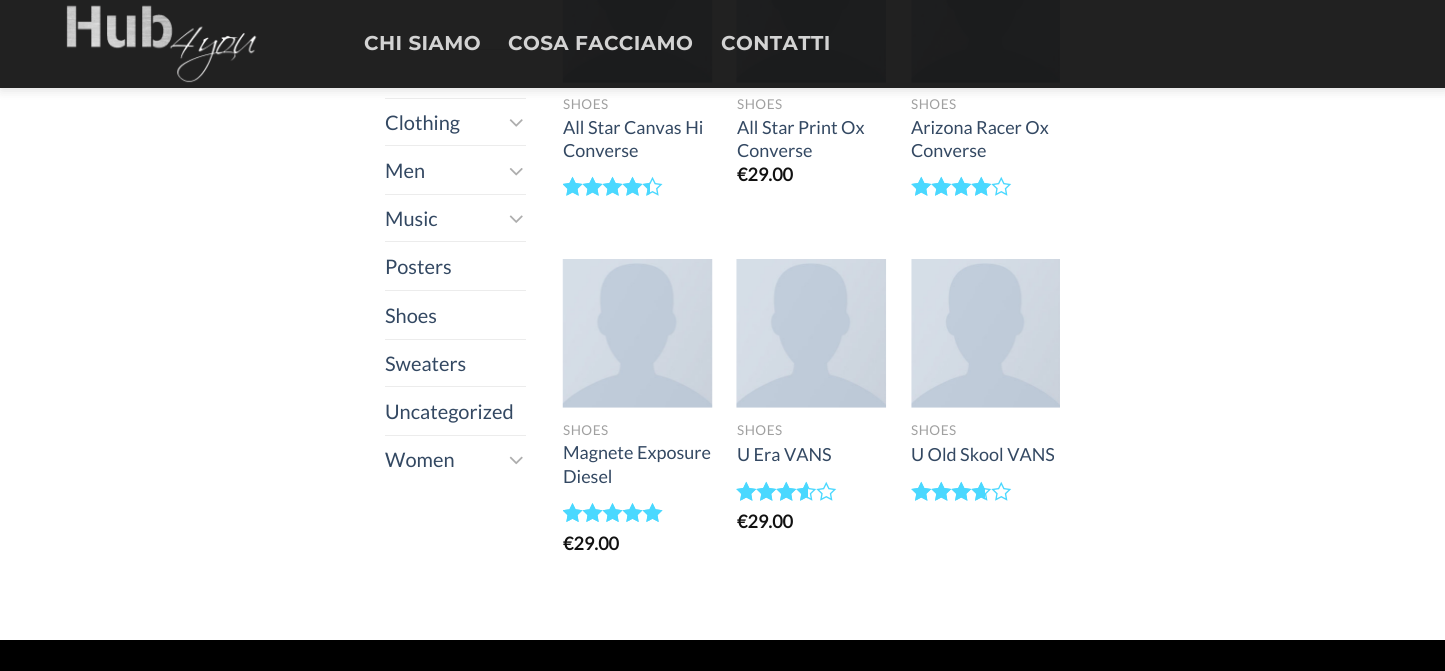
#include <cairo/cairo.h>
#include <math.h>
#include <stddef.h>

typedef struct { double x, y; const char *s; } line_t;
typedef struct { double x, y, w, h; unsigned color; } box_t;
static cairo_t *cr;

static void rgb(unsigned color)
{
	cairo_set_source_rgb(cr, (color >> 16) / 255.0, (color >> 8 & 255) / 255.0, (color & 255) / 255.0);
}

static void tracked(double x, double y, const char *s, double letter, double word)
{
	cairo_move_to(cr, x, y);
	while (*s) {
		char ch[5] = {0};
		int n = 0;
		do ch[n++] = *s++; while ((*s & 0xC0) == 0x80);
		cairo_show_text(cr, ch);
		cairo_rel_move_to(cr, letter + word * (*ch == ' '), 0);
	}
}

static void rrect(double x, double y, double w, double h, double r)
{
	cairo_new_sub_path(cr);
	cairo_arc(cr, x + w - r, y + h - r, r, 0, M_PI / 2);
	cairo_arc(cr, x + r, y + h - r, r, M_PI / 2, M_PI);
	cairo_arc(cr, x + r, y + r, r, M_PI, 1.5 * M_PI);
	cairo_arc(cr, x + w - r, y + r, r, 1.5 * M_PI, 2 * M_PI);
	cairo_close_path(cr);
}

static void soft_shadow(double x, double y, double w, double h, double r, double blur, double alpha)
{
	cairo_push_group_with_content(cr, CAIRO_CONTENT_ALPHA);
	cairo_set_operator(cr, CAIRO_OPERATOR_SOURCE);
	for (int i = 15; i >= -15 && fmin(w, h) + blur * i / 3 > 0; i -= 2) {
		double e = blur * i / 6;
		cairo_set_source_rgba(cr, 0, 0, 0, alpha * erfc((i - 1) / 8.5) / 2);
		rrect(x - e, y - e, w + 2 * e, h + 2 * e, fmax(0, fmin(r + e + blur * .6, fmin(w, h) / 2 + e)));
		cairo_fill(cr);
	}
	cairo_pattern_t *soft = cairo_pop_group(cr);
	cairo_mask(cr, soft);
	cairo_pattern_destroy(soft);
}

static void image(const char *path, double x, double y, double w, double h)
{
	cairo_surface_t *image = cairo_image_surface_create_from_png(path);
	cairo_save(cr);
	cairo_set_source_surface(cr, image, x, y);
	cairo_rectangle(cr, x, y, w, h);
	cairo_fill(cr);
	cairo_restore(cr);
	cairo_surface_destroy(image);
}

int main(void) {
	cairo_surface_t *surface = cairo_image_surface_create(CAIRO_FORMAT_RGB24, 1445, 671);
	cr = cairo_create(surface);
	cairo_font_options_t *options = cairo_font_options_create();
	cairo_font_options_set_hint_metrics(options, CAIRO_HINT_METRICS_OFF);
	cairo_font_options_set_hint_style(options, CAIRO_HINT_STYLE_NONE);
	cairo_set_font_options(cr, options);
	cairo_set_miter_limit(cr, 4);
	rgb(0xffffff);
	cairo_paint(cr);
	rgb(0xececec);
	cairo_rectangle(cr, 385, 49, 141, 1);
	cairo_fill(cr);
	cairo_rectangle(cr, 385, 98, 141, 1);
	cairo_fill(cr);
	image("img/6.png", 562, 0, 151, 83);
	image("img/9.png", 736, 0, 151, 83);
	image("img/10.png", 911, 0, 149, 83);
	cairo_save(cr);
	cairo_set_fill_rule(cr, CAIRO_FILL_RULE_EVEN_ODD);
	cairo_new_path(cr);
	cairo_move_to(cr, 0, 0);
	cairo_line_to(cr, 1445, 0);
	cairo_line_to(cr, 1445, 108);
	cairo_line_to(cr, 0, 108);
	cairo_close_path(cr);
	cairo_move_to(cr, 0, 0);
	cairo_line_to(cr, 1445, 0);
	cairo_line_to(cr, 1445, 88);
	cairo_line_to(cr, 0, 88);
	cairo_close_path(cr);
	cairo_clip(cr);
	rgb(0x000000);
	soft_shadow(1, 1, 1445, 88, 0, 6, 0.15);
	cairo_restore(cr);
	cairo_set_source_rgba(cr, 0.039, 0.039, 0.039, 0.9);
	cairo_rectangle(cr, 0, 0, 1445, 88);
	cairo_fill(cr);
	image("img/1.png", 66, 5, 191, 78);
	image("img/2.png", 509, 119, 14, 8);
	rgb(0xececec);
	cairo_rectangle(cr, 385, 145, 141, 1);
	cairo_fill(cr);
	image("img/3.png", 509, 168, 14, 8);
	cairo_rectangle(cr, 385, 194, 141, 1);
	cairo_fill(cr);
	image("img/4.png", 509, 215, 14, 8);
	{
		static const box_t items[] = {
			{385, 241, 141, 1, 0xececec},
			{385, 290, 141, 1, 0xececec},
			{385, 339, 141, 1, 0xececec},
			{385, 386, 141, 1, 0xececec},
			{385, 435, 141, 1, 0xececec},
		};
		for (size_t i = 0; i < sizeof items / sizeof *items; i++) {
			rgb(items[i].color);
			cairo_rectangle(cr, items[i].x, items[i].y, items[i].w, items[i].h);
			cairo_fill(cr);
		}
	}
	image("img/5.png", 509, 456, 14, 9);
	image("img/7.png", 563, 176, 100, 20);
	image("img/8.png", 563, 176, 87, 20);
	image("img/11.png", 911, 176, 101, 20);
	image("img/12.png", 911, 176, 80, 20);
	image("img/13.png", 562, 259, 151, 149);
	image("img/14.png", 563, 503, 100, 19);
	image("img/15.png", 563, 503, 100, 19);
	image("img/16.png", 736, 259, 151, 149);
	image("img/11.png", 736, 481, 101, 20);
	image("img/17.png", 736, 481, 72, 20);
	image("img/18.png", 911, 259, 149, 149);
	image("img/11.png", 911, 481, 101, 20);
	image("img/19.png", 911, 481, 74, 20);
	rgb(0x000000);
	cairo_rectangle(cr, 0, 640, 1445, 31);
	cairo_fill(cr);
	cairo_select_font_face(cr, "Montserrat", CAIRO_FONT_SLANT_NORMAL, CAIRO_FONT_WEIGHT_BOLD);
	cairo_set_font_size(cr, 20);
	rgb(0xd3d3d3);
	{
		static const line_t items[] = {
			{364, 50, "CHI SIAMO"},
			{508, 50, "COSA FACCIAMO"},
			{721, 50, "CONTATTI"},
		};
		for (size_t i = 0; i < sizeof items / sizeof *items; i++) {
			tracked(items[i].x, items[i].y, items[i].s, 0.4, 0);
		}
	}
	cairo_select_font_face(cr, "Lato", CAIRO_FONT_SLANT_NORMAL, CAIRO_FONT_WEIGHT_NORMAL);
	rgb(0x334862);
	{
		static const line_t items[] = {
			{385, 130, "Clothing"},
			{385, 178, "Men"},
			{385, 226, "Music"},
			{385, 274, "Posters"},
			{385, 323, "Shoes"},
			{385, 371, "Sweaters"},
			{385, 419, "Uncategorized"},
			{385, 467, "Women"},
		};
		for (size_t i = 0; i < sizeof items / sizeof *items; i++) {
			cairo_move_to(cr, items[i].x, items[i].y);
			cairo_show_text(cr, items[i].s);
		}
	}
	cairo_set_font_size(cr, 13.5);
	rgb(0xa0a0a0);
	tracked(563, 109, "SHOES", 0.5, 0);
	cairo_set_font_size(cr, 18);
	rgb(0x334862);
	cairo_move_to(cr, 563, 134);
	cairo_show_text(cr, "All Star Canvas Hi");
	cairo_move_to(cr, 563, 157);
	cairo_show_text(cr, "Converse");
	cairo_set_font_size(cr, 13.5);
	rgb(0xa0a0a0);
	tracked(737, 109, "SHOES", 0.5, 0);
	cairo_set_font_size(cr, 18);
	rgb(0x334862);
	cairo_move_to(cr, 737, 134);
	cairo_show_text(cr, "All Star Print Ox");
	cairo_move_to(cr, 737, 157);
	cairo_show_text(cr, "Converse");
	cairo_select_font_face(cr, "Lato", CAIRO_FONT_SLANT_NORMAL, CAIRO_FONT_WEIGHT_BOLD);
	rgb(0x111111);
	cairo_move_to(cr, 737, 181);
	cairo_show_text(cr, "€29.00");
	cairo_select_font_face(cr, "Lato", CAIRO_FONT_SLANT_NORMAL, CAIRO_FONT_WEIGHT_NORMAL);
	cairo_set_font_size(cr, 13.5);
	rgb(0xa0a0a0);
	tracked(911, 109, "SHOES", 0.5, 0);
	cairo_set_font_size(cr, 18);
	rgb(0x334862);
	cairo_move_to(cr, 911, 134);
	cairo_show_text(cr, "Arizona Racer Ox");
	cairo_move_to(cr, 911, 157);
	cairo_show_text(cr, "Converse");
	cairo_set_font_size(cr, 13.5);
	rgb(0xa0a0a0);
	tracked(563, 435, "SHOES", 0.5, 0);
	cairo_set_font_size(cr, 18);
	rgb(0x334862);
	cairo_move_to(cr, 563, 459);
	cairo_show_text(cr, "Magnete Exposure");
	cairo_move_to(cr, 563, 483);
	cairo_show_text(cr, "Diesel");
	cairo_select_font_face(cr, "Lato", CAIRO_FONT_SLANT_NORMAL, CAIRO_FONT_WEIGHT_BOLD);
	rgb(0x111111);
	cairo_move_to(cr, 563, 550);
	cairo_show_text(cr, "€29.00");
	cairo_select_font_face(cr, "Lato", CAIRO_FONT_SLANT_NORMAL, CAIRO_FONT_WEIGHT_NORMAL);
	cairo_set_font_size(cr, 13.5);
	rgb(0xa0a0a0);
	tracked(737, 435, "SHOES", 0.5, 0);
	cairo_set_font_size(cr, 18);
	rgb(0x334862);
	cairo_move_to(cr, 737, 461);
	cairo_show_text(cr, "U Era VANS");
	cairo_select_font_face(cr, "Lato", CAIRO_FONT_SLANT_NORMAL, CAIRO_FONT_WEIGHT_BOLD);
	rgb(0x111111);
	cairo_move_to(cr, 737, 528);
	cairo_show_text(cr, "€29.00");
	cairo_select_font_face(cr, "Lato", CAIRO_FONT_SLANT_NORMAL, CAIRO_FONT_WEIGHT_NORMAL);
	cairo_set_font_size(cr, 13.5);
	rgb(0xa0a0a0);
	tracked(911, 435, "SHOES", 0.5, 0);
	cairo_set_font_size(cr, 18);
	rgb(0x334862);
	cairo_move_to(cr, 911, 461);
	cairo_show_text(cr, "U Old Skool VANS");
	cairo_surface_write_to_png(surface, "page.png");
	cairo_font_options_destroy(options);
	cairo_destroy(cr);
	cairo_surface_destroy(surface);
	return 0;
}
